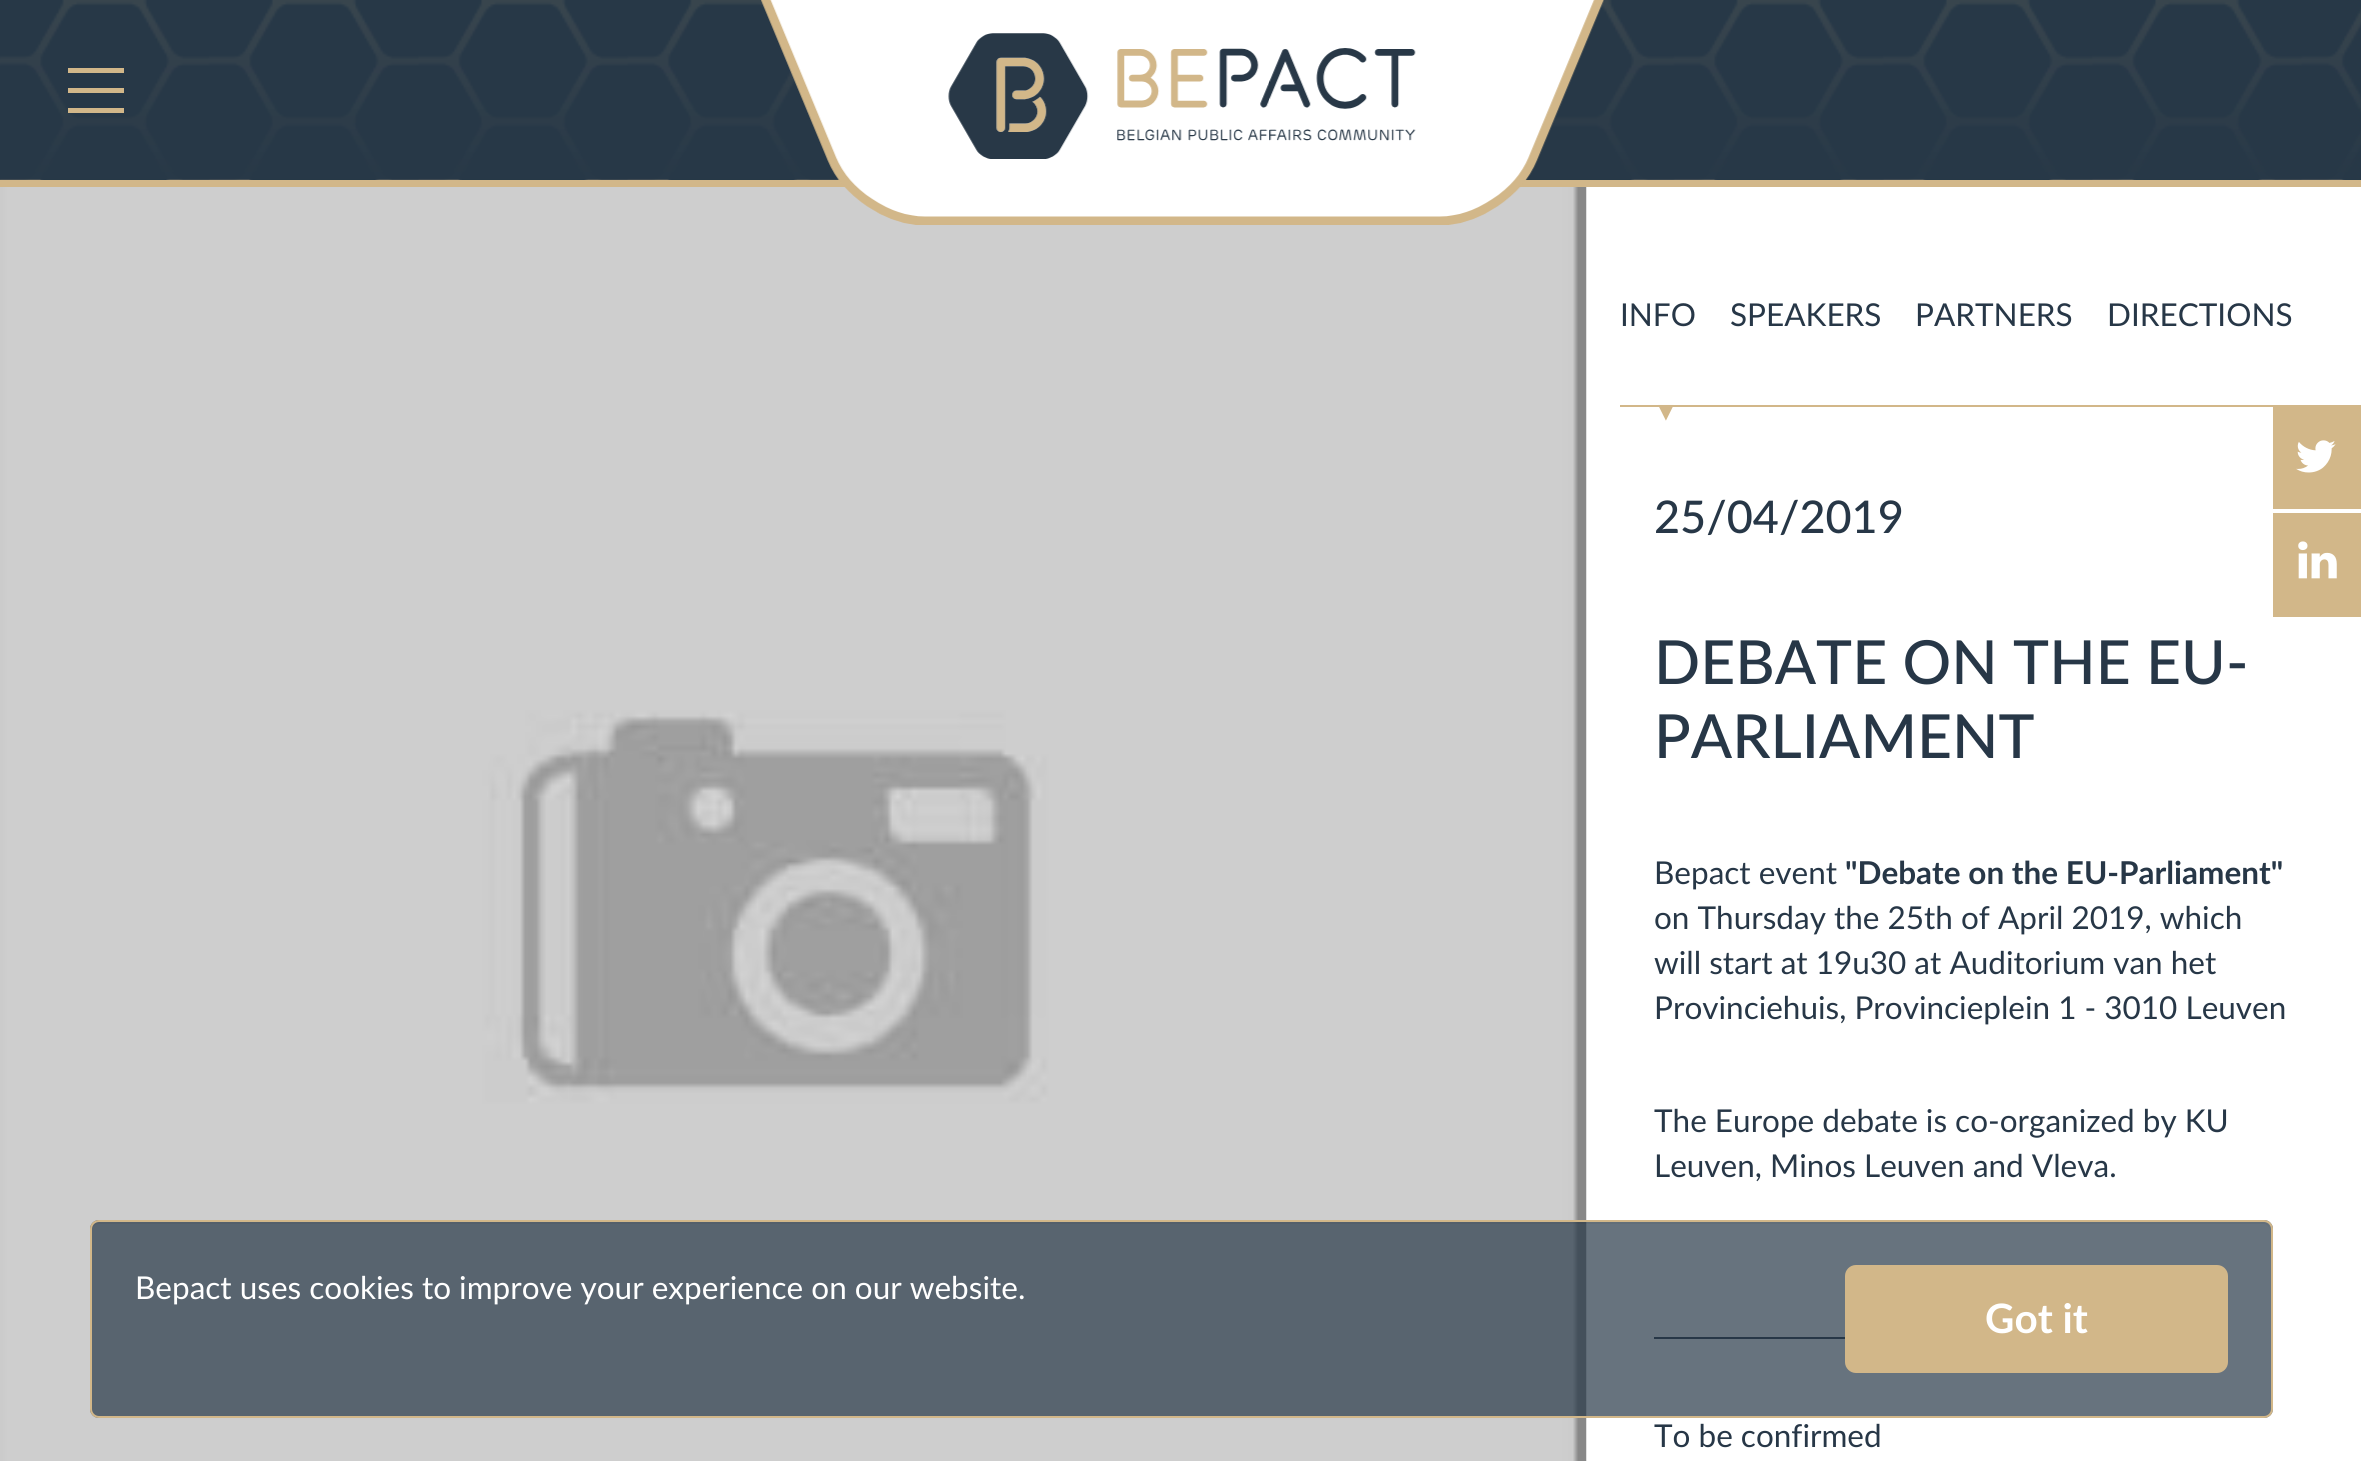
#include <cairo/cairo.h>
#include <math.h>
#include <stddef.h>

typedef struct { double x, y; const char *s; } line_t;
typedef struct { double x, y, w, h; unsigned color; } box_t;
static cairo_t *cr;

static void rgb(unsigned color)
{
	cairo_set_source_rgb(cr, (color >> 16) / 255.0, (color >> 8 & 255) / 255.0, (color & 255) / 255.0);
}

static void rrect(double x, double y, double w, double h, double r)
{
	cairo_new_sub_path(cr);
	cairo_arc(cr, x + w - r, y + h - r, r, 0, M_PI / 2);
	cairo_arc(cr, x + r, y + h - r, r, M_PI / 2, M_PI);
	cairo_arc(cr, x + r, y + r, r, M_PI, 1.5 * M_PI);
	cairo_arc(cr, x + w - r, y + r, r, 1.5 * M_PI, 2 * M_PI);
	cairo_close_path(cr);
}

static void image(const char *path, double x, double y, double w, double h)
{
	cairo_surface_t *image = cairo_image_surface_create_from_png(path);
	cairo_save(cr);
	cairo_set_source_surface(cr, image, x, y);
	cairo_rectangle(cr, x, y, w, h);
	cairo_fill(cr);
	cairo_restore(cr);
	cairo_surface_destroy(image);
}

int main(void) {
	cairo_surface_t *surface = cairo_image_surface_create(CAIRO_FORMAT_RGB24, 2361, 1461);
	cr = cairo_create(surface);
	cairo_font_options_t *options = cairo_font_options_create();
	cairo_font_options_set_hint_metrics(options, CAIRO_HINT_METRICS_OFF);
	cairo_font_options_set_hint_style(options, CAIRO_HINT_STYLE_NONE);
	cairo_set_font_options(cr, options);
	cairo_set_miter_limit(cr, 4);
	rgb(0xffffff);
	cairo_paint(cr);
	rgb(0xd2b789);
	cairo_new_path(cr);
	cairo_move_to(cr, 0, 180);
	cairo_line_to(cr, 0, 187);
	cairo_line_to(cr, 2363, 187);
	cairo_line_to(cr, 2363, 7);
	cairo_line_to(cr, 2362, 7);
	cairo_line_to(cr, 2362, 180);
	cairo_close_path(cr);
	cairo_fill(cr);
	image("img/1.png", 0, 0, 2361, 180);
	image("img/2.png", 0, 0, 2361, 180);
	{
		static const box_t items[] = {
			{68, 68, 56, 5, 0xd2b789},
			{68, 88, 56, 5, 0xd2b789},
			{68, 108, 56, 5, 0xd2b789},
		};
		for (size_t i = 0; i < sizeof items / sizeof *items; i++) {
			rgb(items[i].color);
			cairo_rectangle(cr, items[i].x, items[i].y, items[i].w, items[i].h);
			cairo_fill(cr);
		}
	}
	image("img/4.png", 0, 187, 1587, 1274);
	image("img/3.png", 761, 0, 843, 225);
	{
		static const box_t items[] = {
			{1620, 405, 653, 2, 0xd2b789},
			{1654, 1337, 191, 2, 0x273747},
			{2273, 405, 88, 104, 0xd2b789},
		};
		for (size_t i = 0; i < sizeof items / sizeof *items; i++) {
			rgb(items[i].color);
			cairo_rectangle(cr, items[i].x, items[i].y, items[i].w, items[i].h);
			cairo_fill(cr);
		}
	}
	image("img/5.png", 2296, 440, 40, 33);
	cairo_rectangle(cr, 2273, 513, 88, 104);
	cairo_fill(cr);
	image("img/6.png", 2298, 541, 39, 38);
	cairo_set_source_rgba(cr, 0.153, 0.22, 0.282, 0.7);
	rrect(90, 1220, 2183, 198, 9);
	cairo_fill(cr);
	cairo_set_source_rgba(cr, 0, 0, 0, 0.05);
	cairo_new_path(cr);
	cairo_move_to(cr, 99, 1224);
	cairo_line_to(cr, 2264, 1224);
	cairo_curve_to(cr, 2267, 1224, 2270, 1227, 2270, 1231);
	cairo_curve_to(cr, 2270, 1227, 2268, 1222, 2263, 1222);
	cairo_line_to(cr, 99, 1222);
	cairo_curve_to(cr, 94, 1222, 92, 1227, 92, 1231);
	cairo_curve_to(cr, 92, 1227, 95, 1224, 99, 1224);
	cairo_close_path(cr);
	cairo_fill(cr);
	rrect(91, 1221, 2181, 196, 8);
	rgb(0xd2b789);
	cairo_stroke(cr);
	rrect(1846, 1266, 381, 106, 10);
	cairo_fill_preserve(cr);
	cairo_stroke(cr);
	cairo_select_font_face(cr, "Lato", CAIRO_FONT_SLANT_NORMAL, CAIRO_FONT_WEIGHT_NORMAL);
	cairo_set_font_size(cr, 31.5);
	rgb(0x273747);
	{
		static const line_t items[] = {
			{1620, 326, "INFO"},
			{1730, 326, "SPEAKERS"},
			{1915, 326, "PARTNERS"},
			{2107, 326, "DIRECTIONS"},
		};
		for (size_t i = 0; i < sizeof items / sizeof *items; i++) {
			cairo_move_to(cr, items[i].x, items[i].y);
			cairo_show_text(cr, items[i].s);
		}
	}
	cairo_select_font_face(cr, "DejaVu Sans", CAIRO_FONT_SLANT_NORMAL, CAIRO_FONT_WEIGHT_NORMAL);
	rgb(0xd2b789);
	cairo_move_to(cr, 1658, 421);
	cairo_show_text(cr, "▾");
	cairo_select_font_face(cr, "Lato Medium", CAIRO_FONT_SLANT_NORMAL, CAIRO_FONT_WEIGHT_NORMAL);
	cairo_set_font_size(cr, 45);
	rgb(0x273747);
	cairo_move_to(cr, 1654, 533);
	cairo_show_text(cr, "25/04/2019");
	cairo_set_font_size(cr, 60.75);
	cairo_move_to(cr, 1654, 684);
	cairo_show_text(cr, "DEBATE ON THE EU-");
	cairo_move_to(cr, 1654, 758);
	cairo_show_text(cr, "PARLIAMENT");
	cairo_select_font_face(cr, "Lato", CAIRO_FONT_SLANT_NORMAL, CAIRO_FONT_WEIGHT_NORMAL);
	cairo_set_font_size(cr, 31.5);
	cairo_move_to(cr, 1654, 884);
	cairo_show_text(cr, "Bepact event");
	cairo_select_font_face(cr, "Lato", CAIRO_FONT_SLANT_NORMAL, CAIRO_FONT_WEIGHT_BOLD);
	cairo_move_to(cr, 1845, 884);
	cairo_show_text(cr, "\"Debate on the EU-Parliament\"");
	cairo_select_font_face(cr, "Lato", CAIRO_FONT_SLANT_NORMAL, CAIRO_FONT_WEIGHT_NORMAL);
	{
		static const line_t items[] = {
			{1654, 929, "on Thursday the 25th of April 2019, which"},
			{1654, 974, "will start at 19u30 at Auditorium van het"},
			{1654, 1019, "Provinciehuis, Provincieplein 1 - 3010 Leuven"},
			{1654, 1132, "The Europe debate is co-organized by KU"},
			{1654, 1177, "Leuven, Minos Leuven and Vleva."},
			{1654, 1447, "To be confirmed"},
		};
		for (size_t i = 0; i < sizeof items / sizeof *items; i++) {
			cairo_move_to(cr, items[i].x, items[i].y);
			cairo_show_text(cr, items[i].s);
		}
	}
	rgb(0xffffff);
	cairo_move_to(cr, 135, 1299);
	cairo_show_text(cr, "Bepact uses cookies to improve your experience on our website.");
	cairo_select_font_face(cr, "Lato", CAIRO_FONT_SLANT_NORMAL, CAIRO_FONT_WEIGHT_BOLD);
	cairo_set_font_size(cr, 40.5);
	cairo_move_to(cr, 1985, 1333);
	cairo_show_text(cr, "Got it");
	cairo_surface_write_to_png(surface, "page.png");
	cairo_font_options_destroy(options);
	cairo_destroy(cr);
	cairo_surface_destroy(surface);
	return 0;
}
